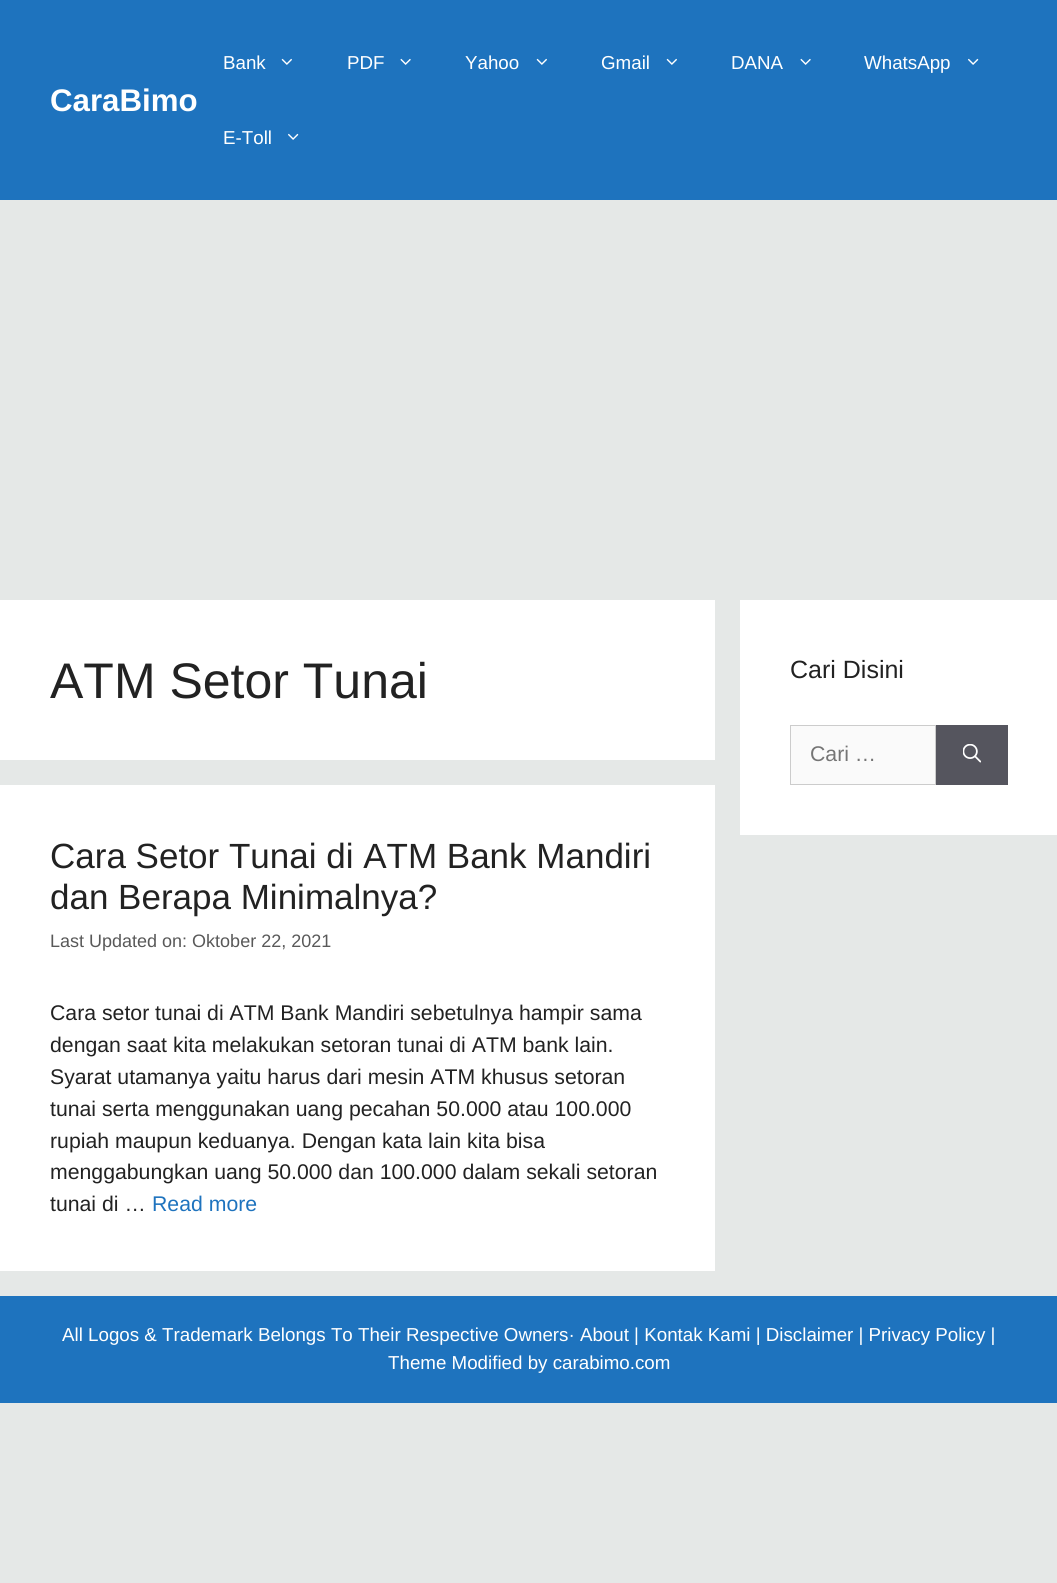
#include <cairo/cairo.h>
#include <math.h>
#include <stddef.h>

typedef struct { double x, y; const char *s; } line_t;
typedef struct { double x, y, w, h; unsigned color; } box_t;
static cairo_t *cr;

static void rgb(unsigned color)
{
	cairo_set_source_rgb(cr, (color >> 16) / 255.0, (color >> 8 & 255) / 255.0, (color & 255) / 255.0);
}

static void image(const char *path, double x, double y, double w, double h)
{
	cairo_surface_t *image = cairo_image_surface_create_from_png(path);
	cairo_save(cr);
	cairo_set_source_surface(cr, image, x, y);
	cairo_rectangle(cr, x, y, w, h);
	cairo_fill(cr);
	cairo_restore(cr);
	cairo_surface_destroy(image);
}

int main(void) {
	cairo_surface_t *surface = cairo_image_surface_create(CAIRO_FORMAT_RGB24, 1057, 1583);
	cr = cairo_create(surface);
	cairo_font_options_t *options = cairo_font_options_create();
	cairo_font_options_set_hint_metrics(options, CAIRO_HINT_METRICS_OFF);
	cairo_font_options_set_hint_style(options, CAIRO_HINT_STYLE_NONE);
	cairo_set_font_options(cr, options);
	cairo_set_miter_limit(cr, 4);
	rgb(0xe5e8e7);
	cairo_paint(cr);
	rgb(0x1e73be);
	cairo_rectangle(cr, 0, 0, 1057, 200);
	cairo_fill(cr);
	image("img/1.png", 281, 58, 11, 7);
	image("img/2.png", 400, 58, 11, 7);
	image("img/1.png", 536, 58, 11, 7);
	image("img/1.png", 666, 58, 11, 7);
	image("img/2.png", 800, 58, 11, 7);
	image("img/3.png", 968, 58, 11, 7);
	image("img/3.png", 288, 133, 11, 7);
	{
		static const box_t items[] = {
			{0, 600, 715, 160, 0xffffff},
			{0, 785, 715, 486, 0xffffff},
			{740, 600, 317, 235, 0xffffff},
		};
		for (size_t i = 0; i < sizeof items / sizeof *items; i++) {
			rgb(items[i].color);
			cairo_rectangle(cr, items[i].x, items[i].y, items[i].w, items[i].h);
			cairo_fill(cr);
		}
	}
	rgb(0xfafafa);
	cairo_rectangle(cr, 790.5, 725.5, 145, 59);
	cairo_fill_preserve(cr);
	rgb(0xcccccc);
	cairo_set_line_width(cr, 1);
	cairo_stroke(cr);
	rgb(0x55555e);
	cairo_rectangle(cr, 936, 725, 72, 60);
	cairo_fill(cr);
	image("img/4.png", 963, 744, 18, 19);
	rgb(0x1e73be);
	cairo_rectangle(cr, 0, 1296, 1057, 107);
	cairo_fill(cr);
	cairo_select_font_face(cr, "Liberation Sans", CAIRO_FONT_SLANT_NORMAL, CAIRO_FONT_WEIGHT_BOLD);
	cairo_set_font_size(cr, 31.25);
	rgb(0xffffff);
	cairo_move_to(cr, 50, 111);
	cairo_show_text(cr, "CaraBimo");
	cairo_select_font_face(cr, "Liberation Sans", CAIRO_FONT_SLANT_NORMAL, CAIRO_FONT_WEIGHT_NORMAL);
	cairo_set_font_size(cr, 18.75);
	{
		static const line_t items[] = {
			{223, 69, "Bank"},
			{347, 69, "PDF"},
			{465, 69, "Yahoo"},
			{601, 69, "Gmail"},
			{731, 69, "DANA"},
			{864, 69, "WhatsApp"},
			{223, 144, "E-Toll"},
		};
		for (size_t i = 0; i < sizeof items / sizeof *items; i++) {
			cairo_move_to(cr, items[i].x, items[i].y);
			cairo_show_text(cr, items[i].s);
		}
	}
	cairo_set_font_size(cr, 50);
	rgb(0x222222);
	cairo_move_to(cr, 50, 698);
	cairo_show_text(cr, "ATM Setor Tunai");
	cairo_set_font_size(cr, 35);
	cairo_move_to(cr, 50, 868);
	cairo_show_text(cr, "Cara Setor Tunai di ATM Bank Mandiri");
	cairo_move_to(cr, 50, 909);
	cairo_show_text(cr, "dan Berapa Minimalnya?");
	cairo_set_font_size(cr, 18);
	rgb(0x595959);
	cairo_move_to(cr, 50, 947);
	cairo_show_text(cr, "Last Updated on: Oktober 22, 2021");
	cairo_set_font_size(cr, 21.25);
	rgb(0x222222);
	{
		static const line_t items[] = {
			{50, 1020, "Cara setor tunai di ATM Bank Mandiri sebetulnya hampir sama"},
			{50, 1052, "dengan saat kita melakukan setoran tunai di ATM bank lain."},
			{50, 1084, "Syarat utamanya yaitu harus dari mesin ATM khusus setoran"},
			{50, 1116, "tunai serta menggunakan uang pecahan 50.000 atau 100.000"},
			{50, 1148, "rupiah maupun keduanya. Dengan kata lain kita bisa"},
			{50, 1179, "menggabungkan uang 50.000 dan 100.000 dalam sekali setoran"},
			{50, 1211, "tunai di …"},
		};
		for (size_t i = 0; i < sizeof items / sizeof *items; i++) {
			cairo_move_to(cr, items[i].x, items[i].y);
			cairo_show_text(cr, items[i].s);
		}
	}
	rgb(0x1e73be);
	cairo_move_to(cr, 152, 1211);
	cairo_show_text(cr, "Read more");
	cairo_set_font_size(cr, 25);
	rgb(0x222222);
	cairo_move_to(cr, 790, 678);
	cairo_show_text(cr, "Cari Disini");
	cairo_set_font_size(cr, 21.25);
	rgb(0x757575);
	cairo_move_to(cr, 810, 761);
	cairo_show_text(cr, "Cari …");
	cairo_set_font_size(cr, 18.75);
	rgb(0xffffff);
	cairo_move_to(cr, 62, 1341);
	cairo_show_text(cr, "All Logos & Trademark Belongs To Their Respective Owners· About | Kontak Kami | Disclaimer | Privacy Policy |");
	cairo_move_to(cr, 388, 1369);
	cairo_show_text(cr, "Theme Modified by carabimo.com");
	cairo_surface_write_to_png(surface, "page.png");
	cairo_font_options_destroy(options);
	cairo_destroy(cr);
	cairo_surface_destroy(surface);
	return 0;
}
